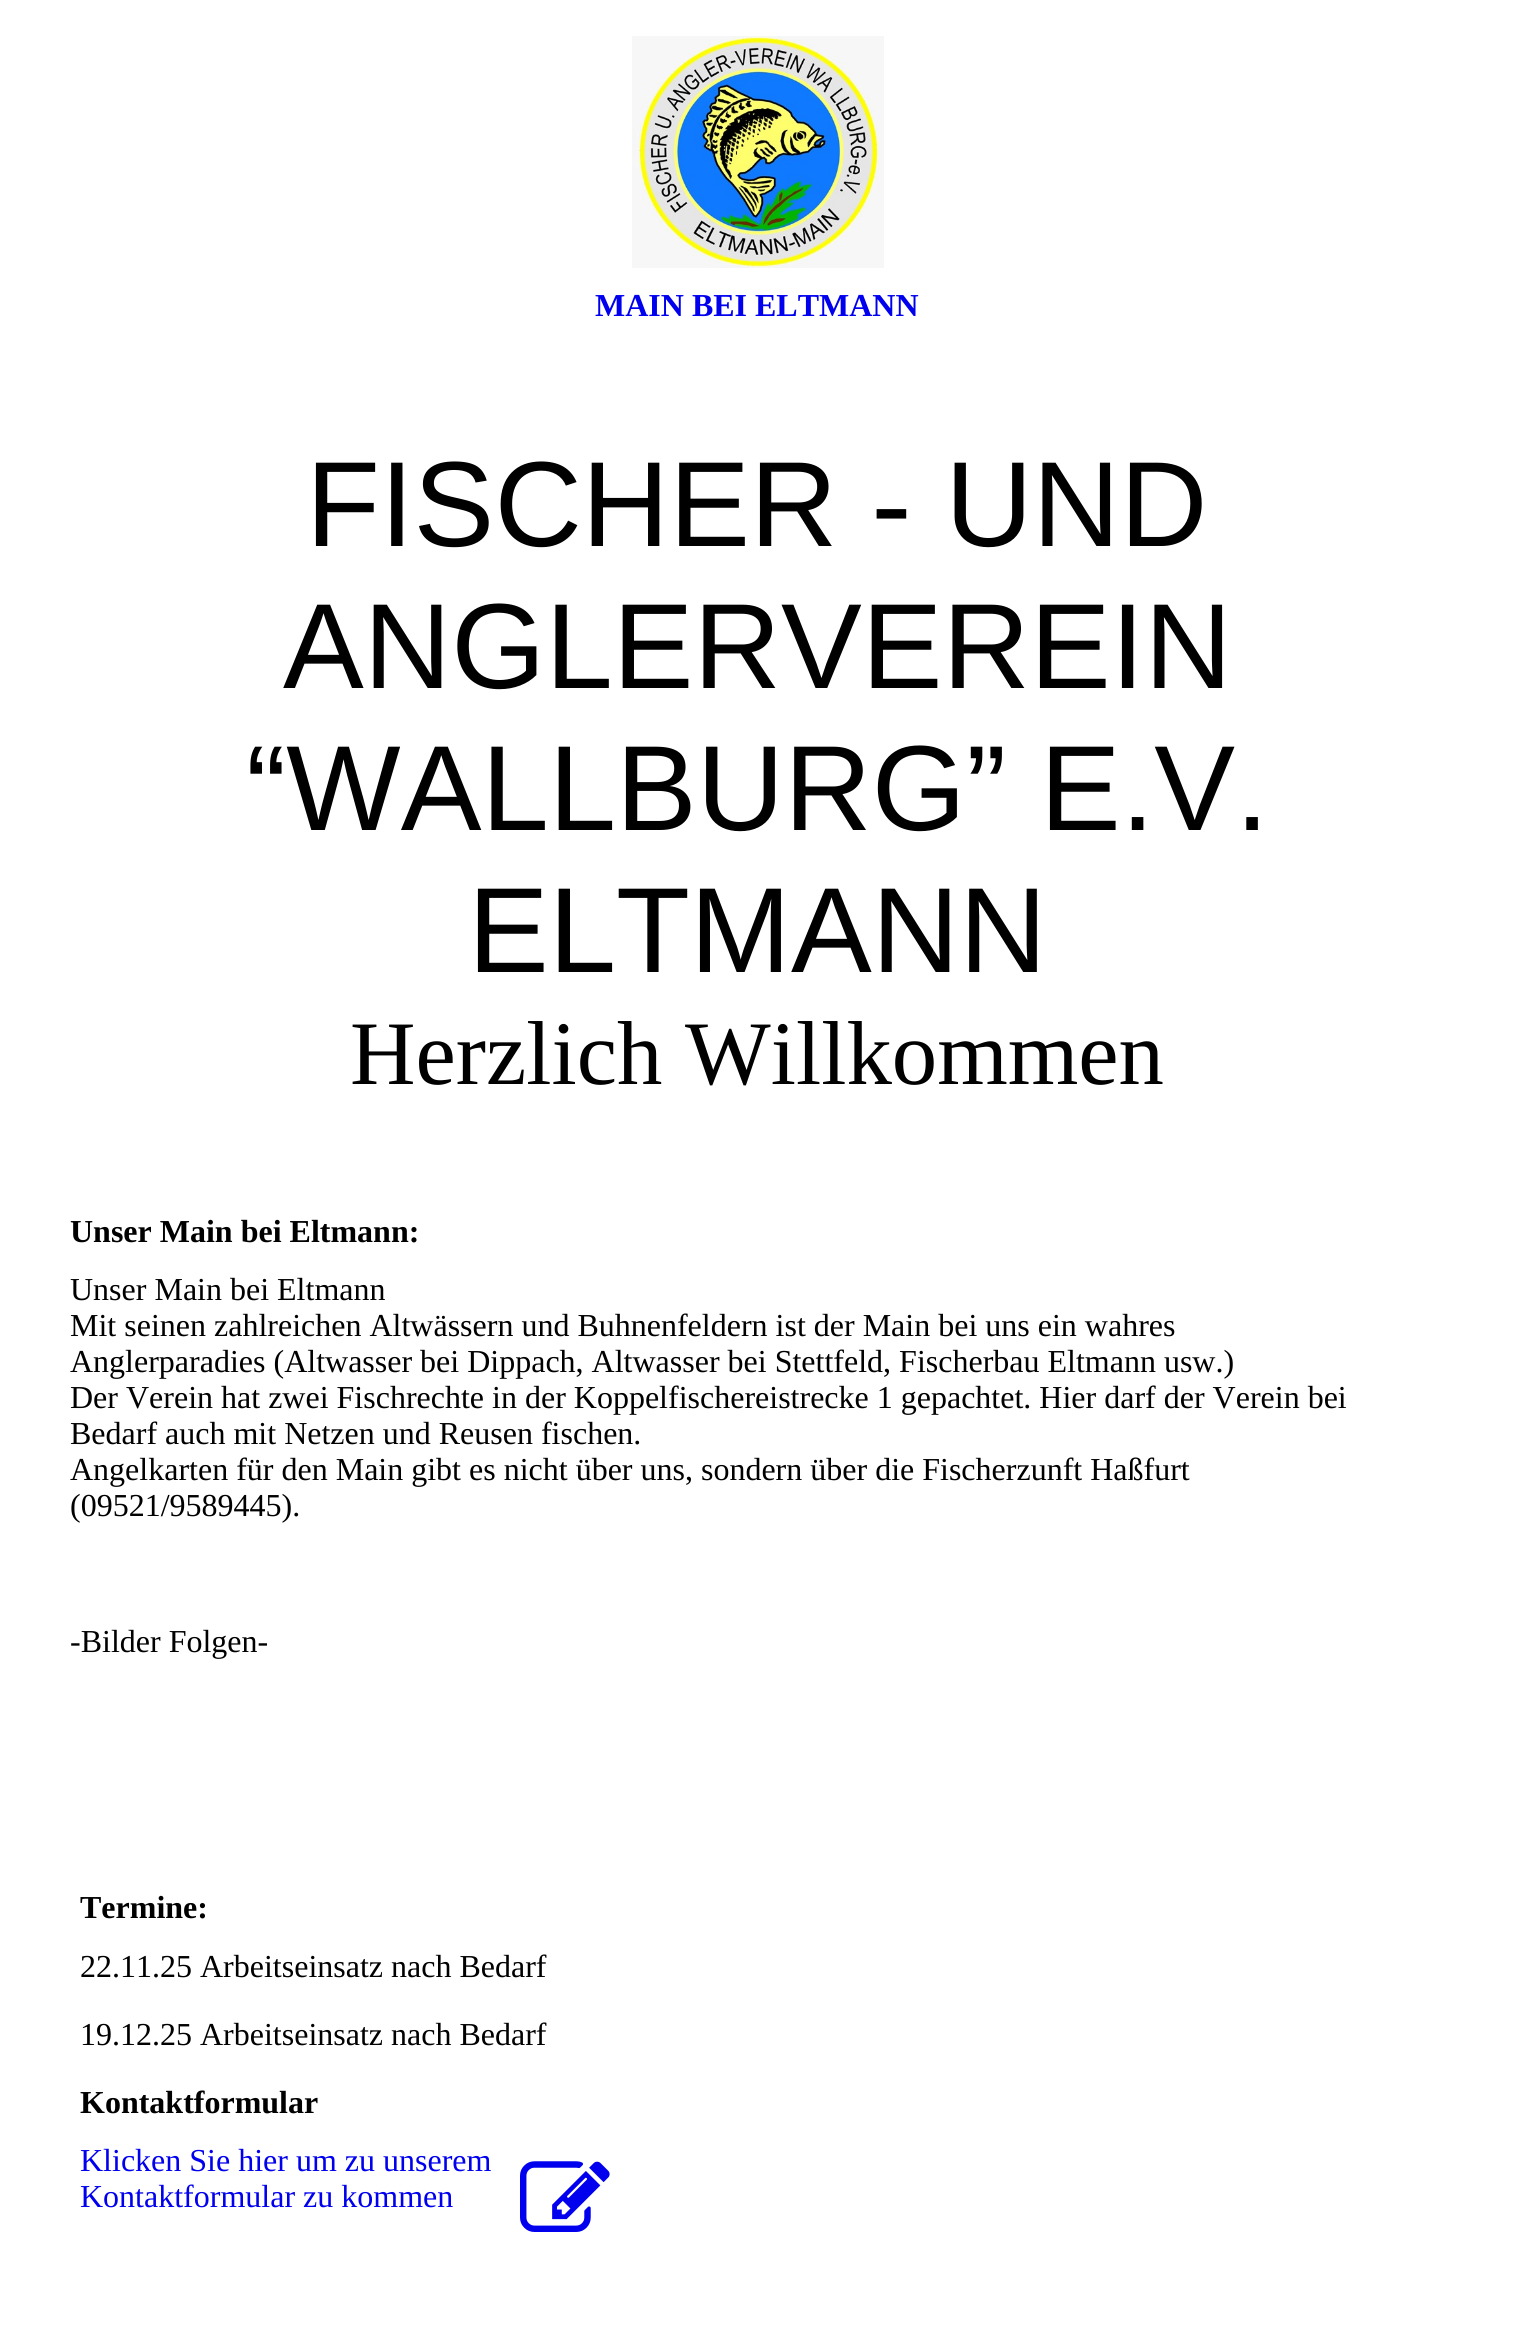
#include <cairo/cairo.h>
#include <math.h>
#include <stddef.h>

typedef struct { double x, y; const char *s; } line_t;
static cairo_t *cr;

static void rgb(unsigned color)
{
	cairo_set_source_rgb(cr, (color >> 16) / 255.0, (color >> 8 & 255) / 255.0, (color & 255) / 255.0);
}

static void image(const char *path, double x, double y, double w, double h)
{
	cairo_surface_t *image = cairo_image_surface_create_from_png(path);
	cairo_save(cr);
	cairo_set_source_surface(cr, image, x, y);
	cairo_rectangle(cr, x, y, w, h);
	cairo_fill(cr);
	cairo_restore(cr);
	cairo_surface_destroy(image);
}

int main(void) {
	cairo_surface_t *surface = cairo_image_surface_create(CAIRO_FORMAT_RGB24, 1514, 2334);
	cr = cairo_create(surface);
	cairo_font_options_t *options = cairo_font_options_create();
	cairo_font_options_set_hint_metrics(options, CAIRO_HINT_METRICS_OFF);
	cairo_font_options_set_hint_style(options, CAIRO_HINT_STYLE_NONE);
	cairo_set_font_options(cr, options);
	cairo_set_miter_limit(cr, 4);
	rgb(0xffffff);
	cairo_paint(cr);
	image("img/1.png", 632, 36, 252, 232);
	image("img/2.png", 520, 2161, 90, 71);
	cairo_select_font_face(cr, "Liberation Serif", CAIRO_FONT_SLANT_NORMAL, CAIRO_FONT_WEIGHT_BOLD);
	cairo_set_font_size(cr, 32);
	rgb(0x0000ee);
	cairo_move_to(cr, 595, 316);
	cairo_show_text(cr, "MAIN BEI ELTMANN");
	cairo_select_font_face(cr, "Liberation Sans", CAIRO_FONT_SLANT_NORMAL, CAIRO_FONT_WEIGHT_NORMAL);
	cairo_set_font_size(cr, 121.1);
	rgb(0x000000);
	{
		static const line_t items[] = {
			{306, 546, "FISCHER - UND"},
			{283, 688, "ANGLERVEREIN"},
			{246, 830, "“WALLBURG” E.V."},
			{468, 972, "ELTMANN"},
		};
		for (size_t i = 0; i < sizeof items / sizeof *items; i++) {
			cairo_move_to(cr, items[i].x, items[i].y);
			cairo_show_text(cr, items[i].s);
		}
	}
	cairo_select_font_face(cr, "Liberation Serif", CAIRO_FONT_SLANT_NORMAL, CAIRO_FONT_WEIGHT_NORMAL);
	cairo_set_font_size(cr, 90.75);
	cairo_move_to(cr, 350, 1084);
	cairo_show_text(cr, "Herzlich Willkommen");
	cairo_select_font_face(cr, "Liberation Serif", CAIRO_FONT_SLANT_NORMAL, CAIRO_FONT_WEIGHT_BOLD);
	cairo_set_font_size(cr, 32);
	cairo_move_to(cr, 70, 1242);
	cairo_show_text(cr, "Unser Main bei Eltmann:");
	cairo_select_font_face(cr, "Liberation Serif", CAIRO_FONT_SLANT_NORMAL, CAIRO_FONT_WEIGHT_NORMAL);
	{
		static const line_t items[] = {
			{70, 1300, "Unser Main bei Eltmann"},
			{70, 1336, "Mit seinen zahlreichen Altwässern und Buhnenfeldern ist der Main bei uns ein wahres"},
			{70, 1372, "Anglerparadies (Altwasser bei Dippach, Altwasser bei Stettfeld, Fischerbau Eltmann usw.)"},
			{70, 1408, "Der Verein hat zwei Fischrechte in der Koppelfischereistrecke 1 gepachtet. Hier darf der Verein bei"},
			{70, 1444, "Bedarf auch mit Netzen und Reusen fischen."},
			{70, 1480, "Angelkarten für den Main gibt es nicht über uns, sondern über die Fischerzunft Haßfurt"},
			{70, 1516, "(09521/9589445)."},
			{70, 1652, "-Bilder Folgen-"},
		};
		for (size_t i = 0; i < sizeof items / sizeof *items; i++) {
			cairo_move_to(cr, items[i].x, items[i].y);
			cairo_show_text(cr, items[i].s);
		}
	}
	cairo_select_font_face(cr, "Liberation Serif", CAIRO_FONT_SLANT_NORMAL, CAIRO_FONT_WEIGHT_BOLD);
	cairo_move_to(cr, 80, 1918);
	cairo_show_text(cr, "Termine:");
	cairo_select_font_face(cr, "Liberation Serif", CAIRO_FONT_SLANT_NORMAL, CAIRO_FONT_WEIGHT_NORMAL);
	cairo_move_to(cr, 80, 1977);
	cairo_show_text(cr, "22.11.25 Arbeitseinsatz nach Bedarf");
	cairo_move_to(cr, 80, 2045);
	cairo_show_text(cr, "19.12.25 Arbeitseinsatz nach Bedarf");
	cairo_select_font_face(cr, "Liberation Serif", CAIRO_FONT_SLANT_NORMAL, CAIRO_FONT_WEIGHT_BOLD);
	cairo_move_to(cr, 80, 2113);
	cairo_show_text(cr, "Kontaktformular");
	cairo_select_font_face(cr, "Liberation Serif", CAIRO_FONT_SLANT_NORMAL, CAIRO_FONT_WEIGHT_NORMAL);
	rgb(0x0000ee);
	cairo_move_to(cr, 80, 2171);
	cairo_show_text(cr, "Klicken Sie hier um zu unserem");
	cairo_move_to(cr, 80, 2207);
	cairo_show_text(cr, "Kontaktformular zu kommen");
	cairo_surface_write_to_png(surface, "page.png");
	cairo_font_options_destroy(options);
	cairo_destroy(cr);
	cairo_surface_destroy(surface);
	return 0;
}
